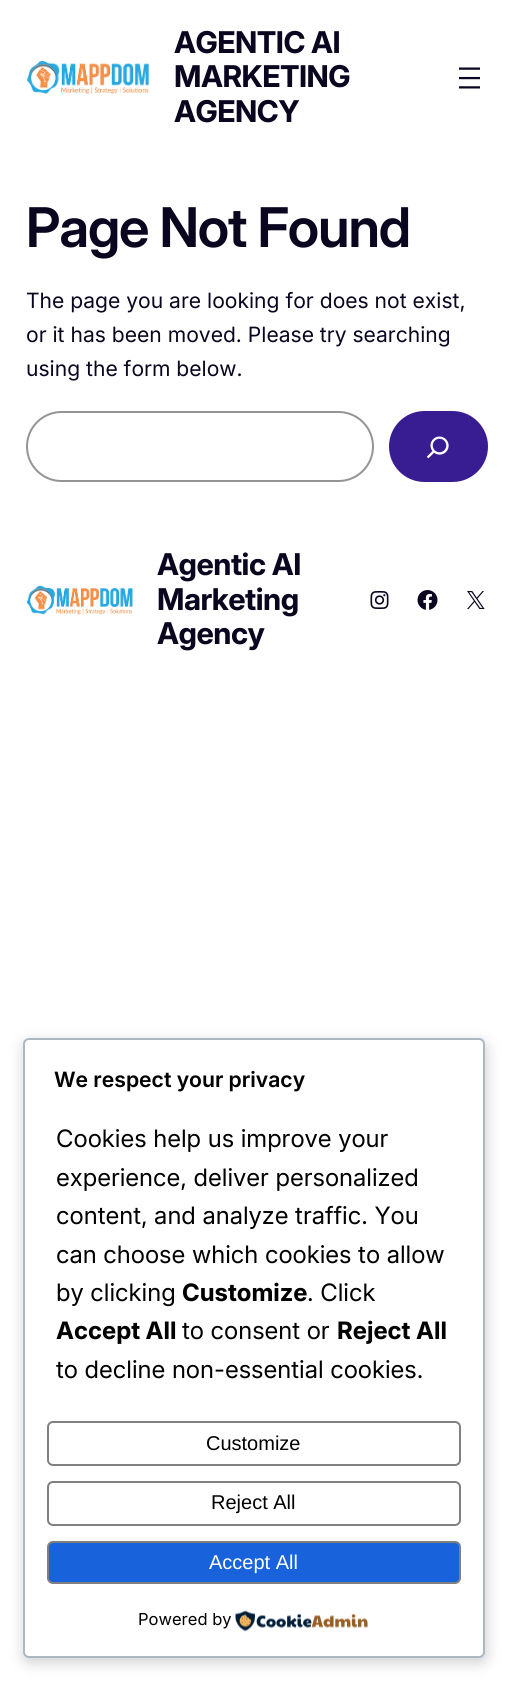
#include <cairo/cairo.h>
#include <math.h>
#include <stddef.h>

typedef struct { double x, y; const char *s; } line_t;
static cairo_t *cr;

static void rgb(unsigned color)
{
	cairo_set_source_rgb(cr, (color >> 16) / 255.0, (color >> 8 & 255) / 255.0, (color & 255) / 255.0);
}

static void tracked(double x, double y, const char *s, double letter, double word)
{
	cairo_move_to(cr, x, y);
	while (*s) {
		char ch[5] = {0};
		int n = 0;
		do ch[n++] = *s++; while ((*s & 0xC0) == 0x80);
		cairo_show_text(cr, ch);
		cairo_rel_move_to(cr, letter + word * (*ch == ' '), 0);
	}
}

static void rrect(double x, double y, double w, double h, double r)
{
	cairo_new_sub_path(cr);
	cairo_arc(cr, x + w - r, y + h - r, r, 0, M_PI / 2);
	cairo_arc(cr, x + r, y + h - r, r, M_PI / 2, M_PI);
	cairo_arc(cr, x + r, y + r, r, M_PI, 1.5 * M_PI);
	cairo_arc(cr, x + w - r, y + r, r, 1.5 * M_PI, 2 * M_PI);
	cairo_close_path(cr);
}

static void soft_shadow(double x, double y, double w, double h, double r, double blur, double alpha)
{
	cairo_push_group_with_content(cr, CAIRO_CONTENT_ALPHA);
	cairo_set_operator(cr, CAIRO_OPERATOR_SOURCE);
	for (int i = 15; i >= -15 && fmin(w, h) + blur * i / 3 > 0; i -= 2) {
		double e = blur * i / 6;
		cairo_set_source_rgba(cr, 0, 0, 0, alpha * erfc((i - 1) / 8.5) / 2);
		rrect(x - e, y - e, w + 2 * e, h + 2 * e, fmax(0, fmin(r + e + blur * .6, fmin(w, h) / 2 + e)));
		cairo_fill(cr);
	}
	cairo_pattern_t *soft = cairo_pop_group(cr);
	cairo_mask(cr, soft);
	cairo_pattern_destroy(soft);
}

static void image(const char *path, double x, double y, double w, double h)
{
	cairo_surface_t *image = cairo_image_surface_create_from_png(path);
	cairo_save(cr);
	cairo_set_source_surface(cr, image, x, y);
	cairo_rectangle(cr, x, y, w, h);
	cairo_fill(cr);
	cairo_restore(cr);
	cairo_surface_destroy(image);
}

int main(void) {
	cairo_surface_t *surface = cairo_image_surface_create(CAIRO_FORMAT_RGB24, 512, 1687);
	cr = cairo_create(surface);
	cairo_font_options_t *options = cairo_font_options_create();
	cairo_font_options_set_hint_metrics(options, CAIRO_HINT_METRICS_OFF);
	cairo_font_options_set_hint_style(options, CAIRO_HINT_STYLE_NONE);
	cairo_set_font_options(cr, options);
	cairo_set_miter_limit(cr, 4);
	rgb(0xffffff);
	cairo_paint(cr);
	image("img/1.png", 26, 60, 124, 35);
	image("img/2.png", 459, 67, 21, 22);
	rrect(27, 412, 346, 69, 34.5);
	rgb(0x949494);
	cairo_stroke(cr);
	rgb(0x381d92);
	rrect(389, 411, 99, 71, 35.5);
	cairo_fill(cr);
	image("img/3.png", 426, 436, 23, 23);
	image("img/4.png", 26, 585, 107, 30);
	image("img/5.png", 370, 591, 19, 18);
	image("img/6.png", 417, 590, 21, 20);
	image("img/7.png", 467, 591, 18, 18);
	rgb(0x000000);
	soft_shadow(24, 1043, 462, 619, 6, 7.5, 0.2);
	rgb(0xffffff);
	rrect(24, 1039, 460, 618, 5);
	cairo_fill_preserve(cr);
	rgb(0xabb8c3);
	cairo_stroke(cr);
	rrect(48, 1422, 412, 43, 5);
	rgb(0x808080);
	cairo_stroke(cr);
	rrect(48, 1482, 412, 43, 5);
	cairo_stroke(cr);
	rgb(0x1863dc);
	rrect(48, 1542, 412, 41, 5);
	cairo_fill_preserve(cr);
	rgb(0x808080);
	cairo_stroke(cr);
	image("img/8.png", 235, 1610, 133, 22);
	cairo_select_font_face(cr, "Inter", CAIRO_FONT_SLANT_NORMAL, CAIRO_FONT_WEIGHT_BOLD);
	cairo_set_font_size(cr, 30);
	rgb(0x0b0620);
	{
		static const line_t items[] = {
			{174, 53, "AGENTIC AI"},
			{174, 87, "MARKETING"},
			{174, 122, "AGENCY"},
		};
		for (size_t i = 0; i < sizeof items / sizeof *items; i++) {
			tracked(items[i].x, items[i].y, items[i].s, -0.5, 0);
		}
	}
	cairo_select_font_face(cr, "Inter SemiBold", CAIRO_FONT_SLANT_NORMAL, CAIRO_FONT_WEIGHT_NORMAL);
	cairo_set_font_size(cr, 54.75);
	tracked(26, 247, "Page Not Found", -1.1, 0);
	cairo_select_font_face(cr, "Inter", CAIRO_FONT_SLANT_NORMAL, CAIRO_FONT_WEIGHT_NORMAL);
	cairo_set_font_size(cr, 21.1);
	{
		static const line_t items[] = {
			{26, 308, "The page you are looking for does not exist,"},
			{26, 342, "or it has been moved. Please try searching"},
			{26, 376, "using the form below."},
		};
		for (size_t i = 0; i < sizeof items / sizeof *items; i++) {
			cairo_move_to(cr, items[i].x, items[i].y);
			cairo_show_text(cr, items[i].s);
		}
	}
	cairo_select_font_face(cr, "Inter", CAIRO_FONT_SLANT_NORMAL, CAIRO_FONT_WEIGHT_BOLD);
	cairo_set_font_size(cr, 30);
	{
		static const line_t items[] = {
			{157, 575, "Agentic AI"},
			{157, 610, "Marketing"},
			{157, 644, "Agency"},
		};
		for (size_t i = 0; i < sizeof items / sizeof *items; i++) {
			tracked(items[i].x, items[i].y, items[i].s, -0.5, 0);
		}
	}
	cairo_select_font_face(cr, "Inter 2 SemiBold", CAIRO_FONT_SLANT_NORMAL, CAIRO_FONT_WEIGHT_NORMAL);
	cairo_set_font_size(cr, 21.1);
	rgb(0x000000);
	cairo_move_to(cr, 54, 1087);
	cairo_show_text(cr, "We respect your privacy");
	cairo_select_font_face(cr, "Inter 2", CAIRO_FONT_SLANT_NORMAL, CAIRO_FONT_WEIGHT_NORMAL);
	cairo_set_font_size(cr, 24);
	{
		static const line_t items[] = {
			{56, 1147, "Cookies help us improve your"},
			{56, 1186, "experience, deliver personalized"},
			{56, 1224, "content, and analyze traffic. You"},
			{56, 1263, "can choose which cookies to allow"},
			{56, 1301, "by clicking"},
		};
		for (size_t i = 0; i < sizeof items / sizeof *items; i++) {
			cairo_move_to(cr, items[i].x, items[i].y);
			cairo_show_text(cr, items[i].s);
		}
	}
	cairo_select_font_face(cr, "Inter 2", CAIRO_FONT_SLANT_NORMAL, CAIRO_FONT_WEIGHT_BOLD);
	cairo_move_to(cr, 182, 1301);
	cairo_show_text(cr, "Customize");
	cairo_select_font_face(cr, "Inter 2", CAIRO_FONT_SLANT_NORMAL, CAIRO_FONT_WEIGHT_NORMAL);
	cairo_move_to(cr, 307, 1301);
	cairo_show_text(cr, ". Click");
	cairo_select_font_face(cr, "Inter 2", CAIRO_FONT_SLANT_NORMAL, CAIRO_FONT_WEIGHT_BOLD);
	cairo_move_to(cr, 56, 1339);
	cairo_show_text(cr, "Accept All");
	cairo_select_font_face(cr, "Inter 2", CAIRO_FONT_SLANT_NORMAL, CAIRO_FONT_WEIGHT_NORMAL);
	cairo_move_to(cr, 182, 1339);
	cairo_show_text(cr, "to consent or");
	cairo_select_font_face(cr, "Inter 2", CAIRO_FONT_SLANT_NORMAL, CAIRO_FONT_WEIGHT_BOLD);
	cairo_move_to(cr, 337, 1339);
	cairo_show_text(cr, "Reject All");
	cairo_select_font_face(cr, "Inter 2", CAIRO_FONT_SLANT_NORMAL, CAIRO_FONT_WEIGHT_NORMAL);
	cairo_move_to(cr, 56, 1378);
	cairo_show_text(cr, "to decline non-essential cookies.");
	cairo_select_font_face(cr, "Liberation Sans", CAIRO_FONT_SLANT_NORMAL, CAIRO_FONT_WEIGHT_NORMAL);
	cairo_set_font_size(cr, 20);
	cairo_move_to(cr, 206, 1450);
	cairo_show_text(cr, "Customize");
	cairo_move_to(cr, 211, 1509);
	cairo_show_text(cr, "Reject All");
	rgb(0xffffff);
	cairo_move_to(cr, 209, 1569);
	cairo_show_text(cr, "Accept All");
	cairo_select_font_face(cr, "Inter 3", CAIRO_FONT_SLANT_NORMAL, CAIRO_FONT_WEIGHT_NORMAL);
	cairo_set_font_size(cr, 16.5);
	rgb(0x000000);
	cairo_move_to(cr, 138, 1625);
	cairo_show_text(cr, "Powered by");
	cairo_surface_write_to_png(surface, "page.png");
	cairo_font_options_destroy(options);
	cairo_destroy(cr);
	cairo_surface_destroy(surface);
	return 0;
}
